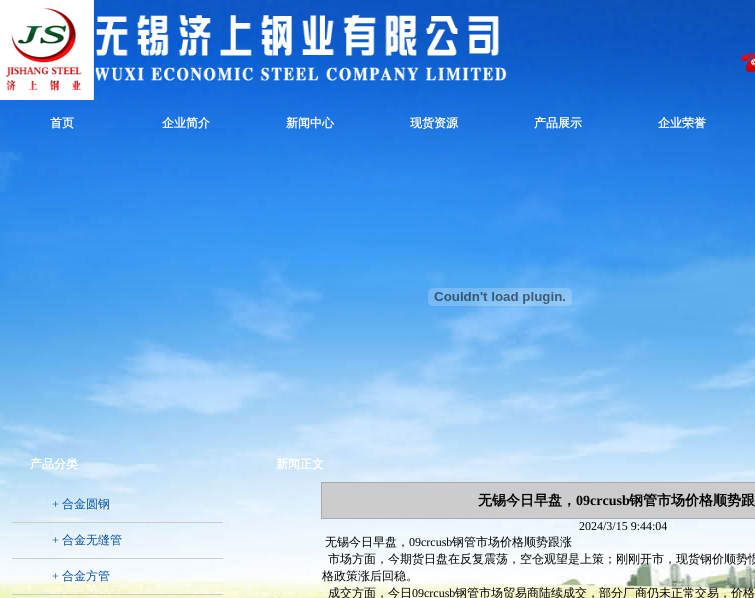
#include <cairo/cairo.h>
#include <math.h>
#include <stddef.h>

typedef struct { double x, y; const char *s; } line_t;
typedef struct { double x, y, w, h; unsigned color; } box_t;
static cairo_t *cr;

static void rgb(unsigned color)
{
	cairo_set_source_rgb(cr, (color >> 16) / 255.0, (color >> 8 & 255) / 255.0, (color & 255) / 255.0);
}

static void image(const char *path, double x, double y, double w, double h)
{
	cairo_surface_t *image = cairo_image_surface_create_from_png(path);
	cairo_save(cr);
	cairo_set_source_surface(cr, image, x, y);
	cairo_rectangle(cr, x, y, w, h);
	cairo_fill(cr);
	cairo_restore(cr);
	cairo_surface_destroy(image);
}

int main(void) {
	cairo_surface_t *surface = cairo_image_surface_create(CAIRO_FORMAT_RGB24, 755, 598);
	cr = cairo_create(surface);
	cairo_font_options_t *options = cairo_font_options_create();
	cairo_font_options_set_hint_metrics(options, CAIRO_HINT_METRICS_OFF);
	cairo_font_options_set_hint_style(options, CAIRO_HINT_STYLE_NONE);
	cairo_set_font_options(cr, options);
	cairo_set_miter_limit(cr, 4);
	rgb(0xffffff);
	cairo_paint(cr);
	image("img/1.png", 0, 0, 755, 598);
	image("img/2.png", 0, 0, 507, 100);
	image("img/3.png", 741, 53, 14, 19);
	image("img/4.png", 428, 288, 144, 18);
	{
		static const box_t items[] = {
			{12, 522, 211, 1, 0xcccccc},
			{12, 558, 211, 1, 0xcccccc},
			{12, 594, 211, 1, 0xcccccc},
		};
		for (size_t i = 0; i < sizeof items / sizeof *items; i++) {
			rgb(items[i].color);
			cairo_rectangle(cr, items[i].x, items[i].y, items[i].w, items[i].h);
			cairo_fill(cr);
		}
	}
	cairo_rectangle(cr, 321.5, 482.5, 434, 36);
	cairo_fill_preserve(cr);
	rgb(0xaaaaaa);
	cairo_set_line_width(cr, 1);
	cairo_stroke(cr);
	cairo_select_font_face(cr, "WenQuanYi Zen Hei", CAIRO_FONT_SLANT_NORMAL, CAIRO_FONT_WEIGHT_BOLD);
	cairo_set_font_size(cr, 12);
	rgb(0xffffff);
	{
		static const line_t items[] = {
			{50, 127, "首页"},
			{162, 127, "企业简介"},
			{286, 127, "新闻中心"},
			{410, 127, "现货资源"},
			{534, 127, "产品展示"},
			{658, 127, "企业荣誉"},
			{30, 468, "产品分类"},
		};
		for (size_t i = 0; i < sizeof items / sizeof *items; i++) {
			cairo_move_to(cr, items[i].x, items[i].y);
			cairo_show_text(cr, items[i].s);
		}
	}
	cairo_select_font_face(cr, "Liberation Serif", CAIRO_FONT_SLANT_NORMAL, CAIRO_FONT_WEIGHT_NORMAL);
	rgb(0x034da9);
	cairo_move_to(cr, 52, 508);
	cairo_show_text(cr, "+");
	cairo_select_font_face(cr, "WenQuanYi Zen Hei Medium", CAIRO_FONT_SLANT_NORMAL, CAIRO_FONT_WEIGHT_NORMAL);
	cairo_move_to(cr, 62, 508);
	cairo_show_text(cr, "合金圆钢");
	cairo_select_font_face(cr, "Liberation Serif", CAIRO_FONT_SLANT_NORMAL, CAIRO_FONT_WEIGHT_NORMAL);
	cairo_move_to(cr, 52, 544);
	cairo_show_text(cr, "+");
	cairo_select_font_face(cr, "WenQuanYi Zen Hei Medium", CAIRO_FONT_SLANT_NORMAL, CAIRO_FONT_WEIGHT_NORMAL);
	cairo_move_to(cr, 62, 544);
	cairo_show_text(cr, "合金无缝管");
	cairo_select_font_face(cr, "Liberation Serif", CAIRO_FONT_SLANT_NORMAL, CAIRO_FONT_WEIGHT_NORMAL);
	cairo_move_to(cr, 52, 580);
	cairo_show_text(cr, "+");
	cairo_select_font_face(cr, "WenQuanYi Zen Hei Medium", CAIRO_FONT_SLANT_NORMAL, CAIRO_FONT_WEIGHT_NORMAL);
	cairo_move_to(cr, 62, 580);
	cairo_show_text(cr, "合金方管");
	cairo_select_font_face(cr, "WenQuanYi Zen Hei", CAIRO_FONT_SLANT_NORMAL, CAIRO_FONT_WEIGHT_BOLD);
	rgb(0xffffff);
	cairo_move_to(cr, 276, 468);
	cairo_show_text(cr, "新闻正文");
	cairo_set_font_size(cr, 14);
	rgb(0x000000);
	cairo_move_to(cr, 478, 505);
	cairo_show_text(cr, "无锡今日早盘，");
	cairo_select_font_face(cr, "Liberation Serif", CAIRO_FONT_SLANT_NORMAL, CAIRO_FONT_WEIGHT_BOLD);
	cairo_move_to(cr, 576, 505);
	cairo_show_text(cr, "09crcusb");
	cairo_select_font_face(cr, "WenQuanYi Zen Hei", CAIRO_FONT_SLANT_NORMAL, CAIRO_FONT_WEIGHT_BOLD);
	cairo_move_to(cr, 629, 505);
	cairo_show_text(cr, "钢管市场价格顺势跟");
	cairo_select_font_face(cr, "Liberation Serif", CAIRO_FONT_SLANT_NORMAL, CAIRO_FONT_WEIGHT_NORMAL);
	cairo_set_font_size(cr, 12);
	cairo_move_to(cr, 579, 530);
	cairo_show_text(cr, "2024/3/15 9:44:04");
	cairo_select_font_face(cr, "WenQuanYi Zen Hei Medium", CAIRO_FONT_SLANT_NORMAL, CAIRO_FONT_WEIGHT_NORMAL);
	cairo_move_to(cr, 325, 546);
	cairo_show_text(cr, "无锡今日早盘，");
	cairo_select_font_face(cr, "Liberation Serif", CAIRO_FONT_SLANT_NORMAL, CAIRO_FONT_WEIGHT_NORMAL);
	cairo_move_to(cr, 409, 546);
	cairo_show_text(cr, "09crcusb");
	cairo_select_font_face(cr, "WenQuanYi Zen Hei Medium", CAIRO_FONT_SLANT_NORMAL, CAIRO_FONT_WEIGHT_NORMAL);
	{
		static const line_t items[] = {
			{452, 546, "钢管市场价格顺势跟涨"},
			{328, 563, "市场方面，今期货日盘在反复震荡，空仓观望是上策；刚刚开市，现货钢价顺势惯"},
			{322, 580, "格政策涨后回稳。"},
			{328, 597, "成交方面，今日"},
		};
		for (size_t i = 0; i < sizeof items / sizeof *items; i++) {
			cairo_move_to(cr, items[i].x, items[i].y);
			cairo_show_text(cr, items[i].s);
		}
	}
	cairo_select_font_face(cr, "Liberation Serif", CAIRO_FONT_SLANT_NORMAL, CAIRO_FONT_WEIGHT_NORMAL);
	cairo_move_to(cr, 412, 597);
	cairo_show_text(cr, "09crcusb");
	cairo_select_font_face(cr, "WenQuanYi Zen Hei Medium", CAIRO_FONT_SLANT_NORMAL, CAIRO_FONT_WEIGHT_NORMAL);
	cairo_move_to(cr, 455, 597);
	cairo_show_text(cr, "钢管市场贸易商陆续成交，部分厂商仍未正常交易，价格");
	cairo_surface_write_to_png(surface, "page.png");
	cairo_font_options_destroy(options);
	cairo_destroy(cr);
	cairo_surface_destroy(surface);
	return 0;
}
